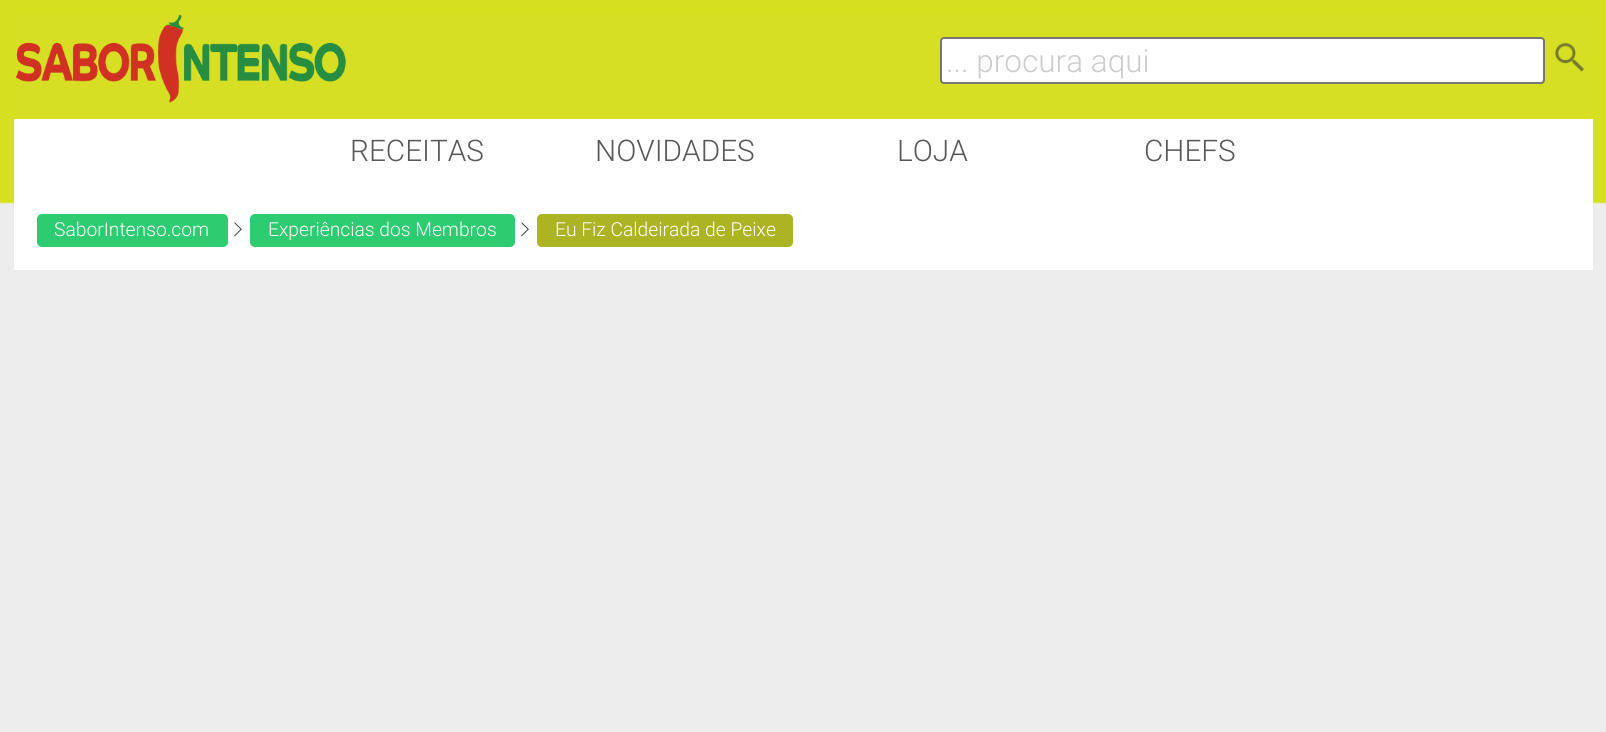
#include <cairo/cairo.h>
#include <math.h>
#include <stddef.h>

typedef struct { double x, y; const char *s; } line_t;
static cairo_t *cr;

static void rgb(unsigned color)
{
	cairo_set_source_rgb(cr, (color >> 16) / 255.0, (color >> 8 & 255) / 255.0, (color & 255) / 255.0);
}

static void rrect(double x, double y, double w, double h, double r)
{
	cairo_new_sub_path(cr);
	cairo_arc(cr, x + w - r, y + h - r, r, 0, M_PI / 2);
	cairo_arc(cr, x + r, y + h - r, r, M_PI / 2, M_PI);
	cairo_arc(cr, x + r, y + r, r, M_PI, 1.5 * M_PI);
	cairo_arc(cr, x + w - r, y + r, r, 1.5 * M_PI, 2 * M_PI);
	cairo_close_path(cr);
}

static void image(const char *path, double x, double y, double w, double h)
{
	cairo_surface_t *image = cairo_image_surface_create_from_png(path);
	cairo_save(cr);
	cairo_set_source_surface(cr, image, x, y);
	cairo_rectangle(cr, x, y, w, h);
	cairo_fill(cr);
	cairo_restore(cr);
	cairo_surface_destroy(image);
}

int main(void) {
	cairo_surface_t *surface = cairo_image_surface_create(CAIRO_FORMAT_RGB24, 1606, 732);
	cr = cairo_create(surface);
	cairo_font_options_t *options = cairo_font_options_create();
	cairo_font_options_set_hint_metrics(options, CAIRO_HINT_METRICS_OFF);
	cairo_font_options_set_hint_style(options, CAIRO_HINT_STYLE_NONE);
	cairo_set_font_options(cr, options);
	cairo_set_miter_limit(cr, 4);
	rgb(0xededed);
	cairo_paint(cr);
	image("img/1.png", 0, 0, 1606, 204);
	rgb(0xd6df23);
	cairo_rectangle(cr, 14, 14, 1579, 105);
	cairo_fill(cr);
	image("img/2.png", 15, 14, 331, 89);
	rgb(0xffffff);
	rrect(941, 38, 603, 45, 3);
	cairo_fill_preserve(cr);
	rgb(0x767676);
	cairo_stroke(cr);
	image("img/3.png", 1555, 42, 30, 30);
	rgb(0xffffff);
	cairo_rectangle(cr, 14, 119, 1579, 151);
	cairo_fill(cr);
	rgb(0x2ecc71);
	rrect(37, 214, 191, 33, 5);
	cairo_fill(cr);
	image("img/4.png", 234, 222, 8, 15);
	rrect(250, 214, 265, 33, 5);
	cairo_fill(cr);
	image("img/4.png", 521, 222, 8, 15);
	rgb(0xadb423);
	rrect(537, 214, 256, 33, 5);
	cairo_fill(cr);
	cairo_select_font_face(cr, "Roboto Light", CAIRO_FONT_SLANT_NORMAL, CAIRO_FONT_WEIGHT_NORMAL);
	cairo_set_font_size(cr, 31.5);
	rgb(0xcccccc);
	cairo_move_to(cr, 946, 72);
	cairo_show_text(cr, "... procura aqui");
	cairo_set_font_size(cr, 29.75);
	rgb(0x585858);
	{
		static const line_t items[] = {
			{350, 161, "RECEITAS"},
			{595, 161, "NOVIDADES"},
			{897, 161, "LOJA"},
			{1144, 161, "CHEFS"},
		};
		for (size_t i = 0; i < sizeof items / sizeof *items; i++) {
			cairo_move_to(cr, items[i].x, items[i].y);
			cairo_show_text(cr, items[i].s);
		}
	}
	cairo_set_font_size(cr, 19.25);
	rgb(0xffffff);
	{
		static const line_t items[] = {
			{54, 236, "SaborIntenso.com"},
			{268, 236, "Experiências dos Membros"},
			{555, 236, "Eu Fiz Caldeirada de Peixe"},
		};
		for (size_t i = 0; i < sizeof items / sizeof *items; i++) {
			cairo_move_to(cr, items[i].x, items[i].y);
			cairo_show_text(cr, items[i].s);
		}
	}
	cairo_surface_write_to_png(surface, "page.png");
	cairo_font_options_destroy(options);
	cairo_destroy(cr);
	cairo_surface_destroy(surface);
	return 0;
}
